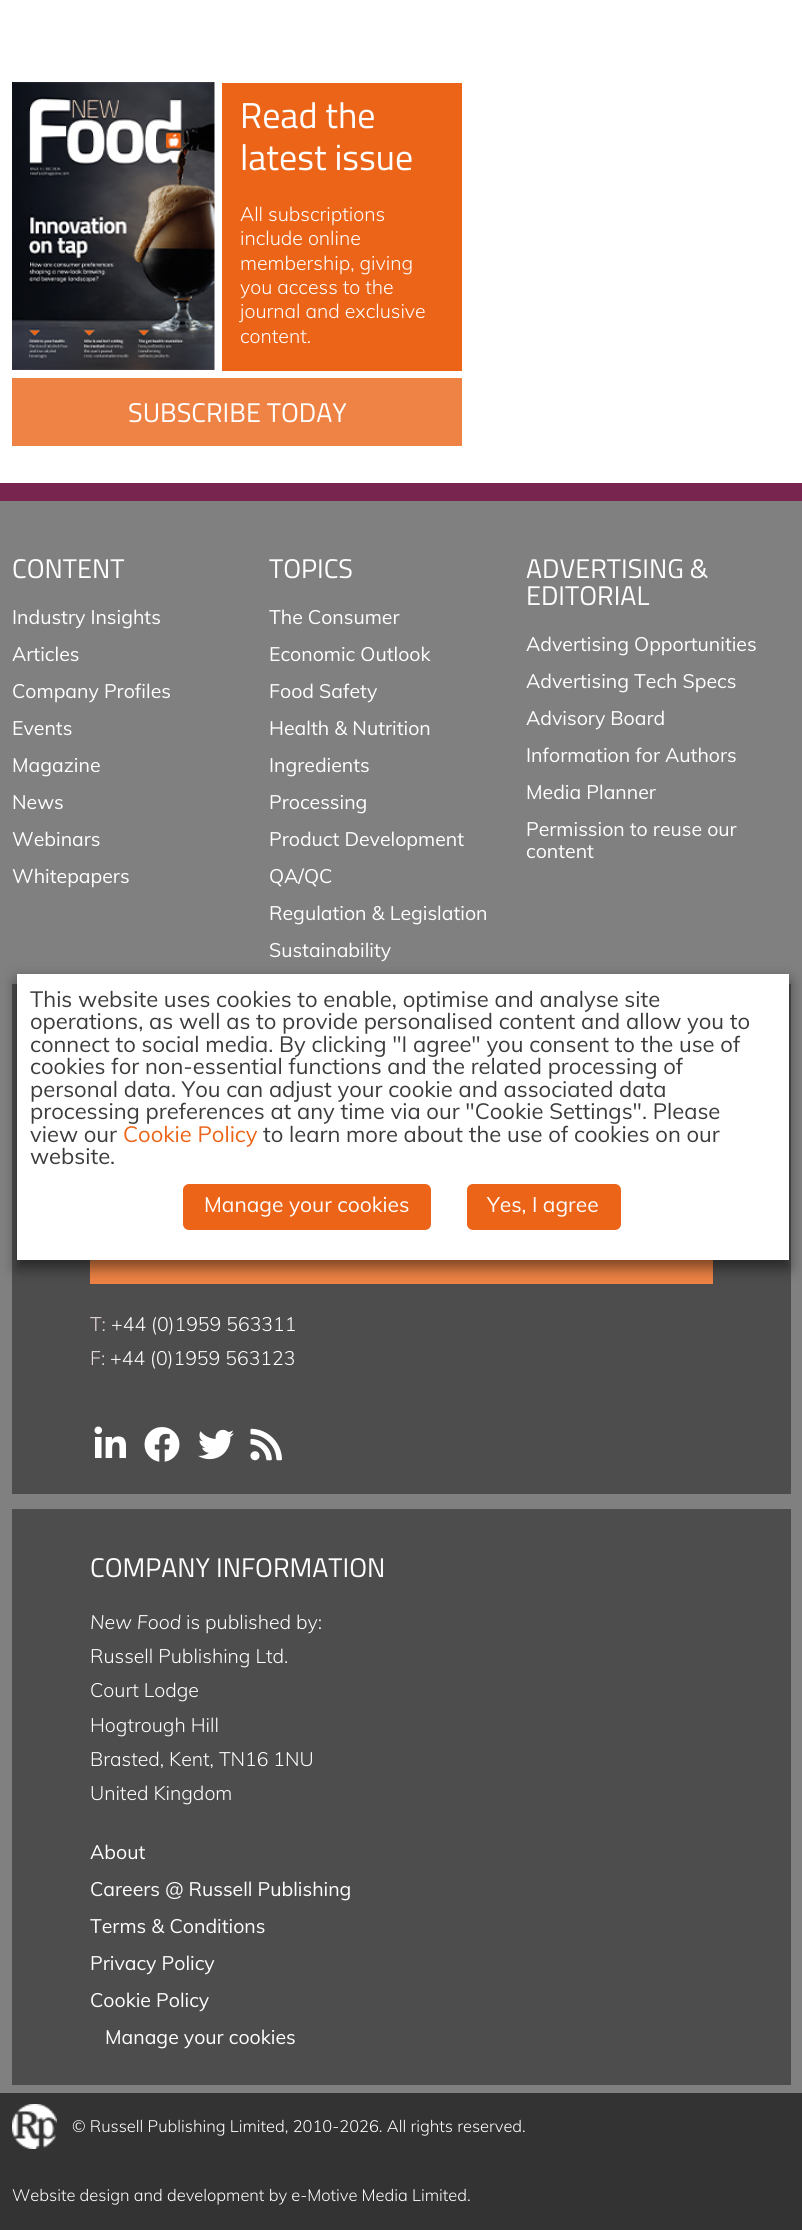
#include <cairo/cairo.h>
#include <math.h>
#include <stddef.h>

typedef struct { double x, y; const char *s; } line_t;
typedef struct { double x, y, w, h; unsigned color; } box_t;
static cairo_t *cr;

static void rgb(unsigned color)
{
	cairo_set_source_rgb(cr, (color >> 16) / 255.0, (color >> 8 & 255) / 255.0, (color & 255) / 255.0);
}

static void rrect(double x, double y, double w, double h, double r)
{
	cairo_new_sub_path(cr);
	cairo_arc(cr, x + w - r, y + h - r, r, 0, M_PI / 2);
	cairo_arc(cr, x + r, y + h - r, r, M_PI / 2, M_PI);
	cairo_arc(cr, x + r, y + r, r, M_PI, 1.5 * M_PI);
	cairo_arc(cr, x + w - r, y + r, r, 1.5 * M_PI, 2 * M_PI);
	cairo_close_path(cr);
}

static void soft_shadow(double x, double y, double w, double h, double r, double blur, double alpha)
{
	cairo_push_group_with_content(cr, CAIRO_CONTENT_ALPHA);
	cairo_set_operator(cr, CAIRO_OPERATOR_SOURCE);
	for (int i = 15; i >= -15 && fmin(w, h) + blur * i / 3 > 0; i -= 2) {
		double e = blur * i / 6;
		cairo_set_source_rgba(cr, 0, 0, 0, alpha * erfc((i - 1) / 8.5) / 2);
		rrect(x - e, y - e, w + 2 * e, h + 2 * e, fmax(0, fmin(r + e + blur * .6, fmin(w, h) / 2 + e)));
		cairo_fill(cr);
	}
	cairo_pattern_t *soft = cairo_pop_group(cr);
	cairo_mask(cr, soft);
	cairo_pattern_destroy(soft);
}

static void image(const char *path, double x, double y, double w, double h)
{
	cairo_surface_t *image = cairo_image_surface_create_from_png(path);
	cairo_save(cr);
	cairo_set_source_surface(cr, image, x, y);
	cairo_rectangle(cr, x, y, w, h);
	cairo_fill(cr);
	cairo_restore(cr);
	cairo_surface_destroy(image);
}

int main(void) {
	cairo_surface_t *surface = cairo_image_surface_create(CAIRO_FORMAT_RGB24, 802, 2230);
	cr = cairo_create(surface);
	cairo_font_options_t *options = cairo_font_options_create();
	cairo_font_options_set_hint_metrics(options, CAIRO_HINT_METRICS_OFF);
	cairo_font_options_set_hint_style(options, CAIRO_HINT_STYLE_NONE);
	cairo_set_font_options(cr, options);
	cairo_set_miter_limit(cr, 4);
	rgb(0xffffff);
	cairo_paint(cr);
	image("img/1.png", 12, 82, 203, 288);
	{
		static const box_t items[] = {
			{222, 83, 240, 288, 0xec6418},
			{12, 378, 450, 68, 0xef8345},
			{0, 501, 802, 1592, 0x808080},
			{0, 483, 802, 18, 0x78254f},
			{12, 984, 779, 510, 0x4d4d4d},
			{90, 1260, 623, 24, 0xef8345},
		};
		for (size_t i = 0; i < sizeof items / sizeof *items; i++) {
			rgb(items[i].color);
			cairo_rectangle(cr, items[i].x, items[i].y, items[i].w, items[i].h);
			cairo_fill(cr);
		}
	}
	image("img/2.png", 94, 1426, 32, 32);
	image("img/3.png", 144, 1427, 36, 35);
	image("img/4.png", 198, 1429, 36, 31);
	image("img/5.png", 250, 1428, 32, 33);
	rgb(0x4d4d4d);
	cairo_rectangle(cr, 12, 1509, 779, 576);
	cairo_fill(cr);
	rgb(0x000000);
	soft_shadow(17, 981, 772, 287, 0, 7.5, 0.5);
	rgb(0xffffff);
	cairo_rectangle(cr, 17, 974, 772, 286);
	cairo_fill(cr);
	rgb(0xec6418);
	rrect(183, 1184, 248, 46, 6);
	cairo_fill(cr);
	rrect(467, 1184, 154, 46, 6);
	cairo_fill(cr);
	rgb(0x333333);
	cairo_rectangle(cr, 0, 2093, 802, 137);
	cairo_fill(cr);
	image("img/6.png", 12, 2104, 45, 45);
	cairo_select_font_face(cr, "Titillium Web", CAIRO_FONT_SLANT_NORMAL, CAIRO_FONT_WEIGHT_NORMAL);
	cairo_set_font_size(cr, 36);
	rgb(0xffffff);
	cairo_move_to(cr, 240, 128);
	cairo_show_text(cr, "Read the");
	cairo_move_to(cr, 240, 170);
	cairo_show_text(cr, "latest issue");
	cairo_select_font_face(cr, "Muli Light", CAIRO_FONT_SLANT_NORMAL, CAIRO_FONT_WEIGHT_NORMAL);
	cairo_set_font_size(cr, 19.5);
	{
		static const line_t items[] = {
			{240, 221, "All subscriptions"},
			{240, 245, "include online"},
			{240, 270, "membership, giving"},
			{240, 294, "you access to the"},
			{240, 318, "journal and exclusive"},
			{240, 343, "content."},
		};
		for (size_t i = 0; i < sizeof items / sizeof *items; i++) {
			cairo_move_to(cr, items[i].x, items[i].y);
			cairo_show_text(cr, items[i].s);
		}
	}
	cairo_select_font_face(cr, "Titillium Web", CAIRO_FONT_SLANT_NORMAL, CAIRO_FONT_WEIGHT_NORMAL);
	cairo_set_font_size(cr, 27);
	cairo_move_to(cr, 128, 422);
	cairo_show_text(cr, "SUBSCRIBE TODAY");
	cairo_move_to(cr, 12, 578);
	cairo_show_text(cr, "CONTENT");
	cairo_select_font_face(cr, "Muli", CAIRO_FONT_SLANT_NORMAL, CAIRO_FONT_WEIGHT_NORMAL);
	cairo_set_font_size(cr, 19.5);
	{
		static const line_t items[] = {
			{12, 624, "Industry Insights"},
			{12, 661, "Articles"},
			{12, 698, "Company Profiles"},
			{12, 735, "Events"},
			{12, 772, "Magazine"},
			{12, 809, "News"},
			{12, 846, "Webinars"},
			{12, 883, "Whitepapers"},
		};
		for (size_t i = 0; i < sizeof items / sizeof *items; i++) {
			cairo_move_to(cr, items[i].x, items[i].y);
			cairo_show_text(cr, items[i].s);
		}
	}
	cairo_select_font_face(cr, "Titillium Web", CAIRO_FONT_SLANT_NORMAL, CAIRO_FONT_WEIGHT_NORMAL);
	cairo_set_font_size(cr, 27);
	cairo_move_to(cr, 269, 578);
	cairo_show_text(cr, "TOPICS");
	cairo_select_font_face(cr, "Muli", CAIRO_FONT_SLANT_NORMAL, CAIRO_FONT_WEIGHT_NORMAL);
	cairo_set_font_size(cr, 19.5);
	{
		static const line_t items[] = {
			{269, 624, "The Consumer"},
			{269, 661, "Economic Outlook"},
			{269, 698, "Food Safety"},
			{269, 735, "Health & Nutrition"},
			{269, 772, "Ingredients"},
			{269, 809, "Processing"},
			{269, 846, "Product Development"},
			{269, 883, "QA/QC"},
			{269, 920, "Regulation & Legislation"},
			{269, 957, "Sustainability"},
		};
		for (size_t i = 0; i < sizeof items / sizeof *items; i++) {
			cairo_move_to(cr, items[i].x, items[i].y);
			cairo_show_text(cr, items[i].s);
		}
	}
	cairo_select_font_face(cr, "Titillium Web", CAIRO_FONT_SLANT_NORMAL, CAIRO_FONT_WEIGHT_NORMAL);
	cairo_set_font_size(cr, 27);
	cairo_move_to(cr, 526, 578);
	cairo_show_text(cr, "ADVERTISING &");
	cairo_move_to(cr, 526, 605);
	cairo_show_text(cr, "EDITORIAL");
	cairo_select_font_face(cr, "Muli", CAIRO_FONT_SLANT_NORMAL, CAIRO_FONT_WEIGHT_NORMAL);
	cairo_set_font_size(cr, 19.5);
	{
		static const line_t items[] = {
			{526, 651, "Advertising Opportunities"},
			{526, 688, "Advertising Tech Specs"},
			{526, 725, "Advisory Board"},
			{526, 762, "Information for Authors"},
			{526, 799, "Media Planner"},
			{526, 836, "Permission to reuse our"},
			{526, 858, "content"},
		};
		for (size_t i = 0; i < sizeof items / sizeof *items; i++) {
			cairo_move_to(cr, items[i].x, items[i].y);
			cairo_show_text(cr, items[i].s);
		}
	}
	cairo_select_font_face(cr, "Muli Light", CAIRO_FONT_SLANT_NORMAL, CAIRO_FONT_WEIGHT_NORMAL);
	rgb(0xe9dce3);
	cairo_move_to(cr, 90, 1331);
	cairo_show_text(cr, "T:");
	rgb(0xffffff);
	cairo_move_to(cr, 111, 1331);
	cairo_show_text(cr, "+44 (0)1959 563311");
	rgb(0xe9dce3);
	cairo_move_to(cr, 90, 1365);
	cairo_show_text(cr, "F:");
	rgb(0xffffff);
	cairo_move_to(cr, 110, 1365);
	cairo_show_text(cr, "+44 (0)1959 563123");
	cairo_select_font_face(cr, "Titillium Web", CAIRO_FONT_SLANT_NORMAL, CAIRO_FONT_WEIGHT_NORMAL);
	cairo_set_font_size(cr, 27);
	cairo_move_to(cr, 90, 1577);
	cairo_show_text(cr, "COMPANY INFORMATION");
	cairo_select_font_face(cr, "Muli Light", CAIRO_FONT_SLANT_ITALIC, CAIRO_FONT_WEIGHT_NORMAL);
	cairo_set_font_size(cr, 19.5);
	cairo_move_to(cr, 90, 1629);
	cairo_show_text(cr, "New Food");
	cairo_select_font_face(cr, "Muli Light", CAIRO_FONT_SLANT_NORMAL, CAIRO_FONT_WEIGHT_NORMAL);
	{
		static const line_t items[] = {
			{186, 1629, "is published by:"},
			{90, 1663, "Russell Publishing Ltd."},
			{90, 1697, "Court Lodge"},
			{90, 1732, "Hogtrough Hill"},
			{90, 1766, "Brasted, Kent, TN16 1NU"},
			{90, 1800, "United Kingdom"},
		};
		for (size_t i = 0; i < sizeof items / sizeof *items; i++) {
			cairo_move_to(cr, items[i].x, items[i].y);
			cairo_show_text(cr, items[i].s);
		}
	}
	cairo_select_font_face(cr, "Muli", CAIRO_FONT_SLANT_NORMAL, CAIRO_FONT_WEIGHT_NORMAL);
	{
		static const line_t items[] = {
			{90, 1859, "About"},
			{90, 1896, "Careers @ Russell Publishing"},
			{90, 1933, "Terms & Conditions"},
			{90, 1970, "Privacy Policy"},
			{90, 2007, "Cookie Policy"},
			{105, 2044, "Manage your cookies"},
		};
		for (size_t i = 0; i < sizeof items / sizeof *items; i++) {
			cairo_move_to(cr, items[i].x, items[i].y);
			cairo_show_text(cr, items[i].s);
		}
	}
	cairo_set_font_size(cr, 22);
	rgb(0x3c3c3b);
	{
		static const line_t items[] = {
			{30, 1007, "This website uses cookies to enable, optimise and analyse site"},
			{30, 1029, "operations, as well as to provide personalised content and allow you to"},
			{30, 1052, "connect to social media. By clicking \"I agree\" you consent to the use of"},
			{30, 1074, "cookies for non-essential functions and the related processing of"},
			{30, 1097, "personal data. You can adjust your cookie and associated data"},
			{30, 1119, "processing preferences at any time via our \"Cookie Settings\". Please"},
			{30, 1142, "view our"},
		};
		for (size_t i = 0; i < sizeof items / sizeof *items; i++) {
			cairo_move_to(cr, items[i].x, items[i].y);
			cairo_show_text(cr, items[i].s);
		}
	}
	rgb(0xec6418);
	cairo_move_to(cr, 123, 1142);
	cairo_show_text(cr, "Cookie Policy");
	rgb(0x3c3c3b);
	cairo_move_to(cr, 263, 1142);
	cairo_show_text(cr, "to learn more about the use of cookies on our");
	cairo_move_to(cr, 30, 1164);
	cairo_show_text(cr, "website.");
	cairo_set_font_size(cr, 21);
	rgb(0xffffff);
	cairo_move_to(cr, 204, 1212);
	cairo_show_text(cr, "Manage your cookies");
	cairo_move_to(cr, 487, 1212);
	cairo_show_text(cr, "Yes, I agree");
	cairo_select_font_face(cr, "Muli Light", CAIRO_FONT_SLANT_NORMAL, CAIRO_FONT_WEIGHT_NORMAL);
	cairo_set_font_size(cr, 16.5);
	cairo_move_to(cr, 72, 2132);
	cairo_show_text(cr, "© Russell Publishing Limited, 2010-2026. All rights reserved.");
	cairo_move_to(cr, 12, 2201);
	cairo_show_text(cr, "Website design and development by e-Motive Media Limited.");
	cairo_surface_write_to_png(surface, "page.png");
	cairo_font_options_destroy(options);
	cairo_destroy(cr);
	cairo_surface_destroy(surface);
	return 0;
}
